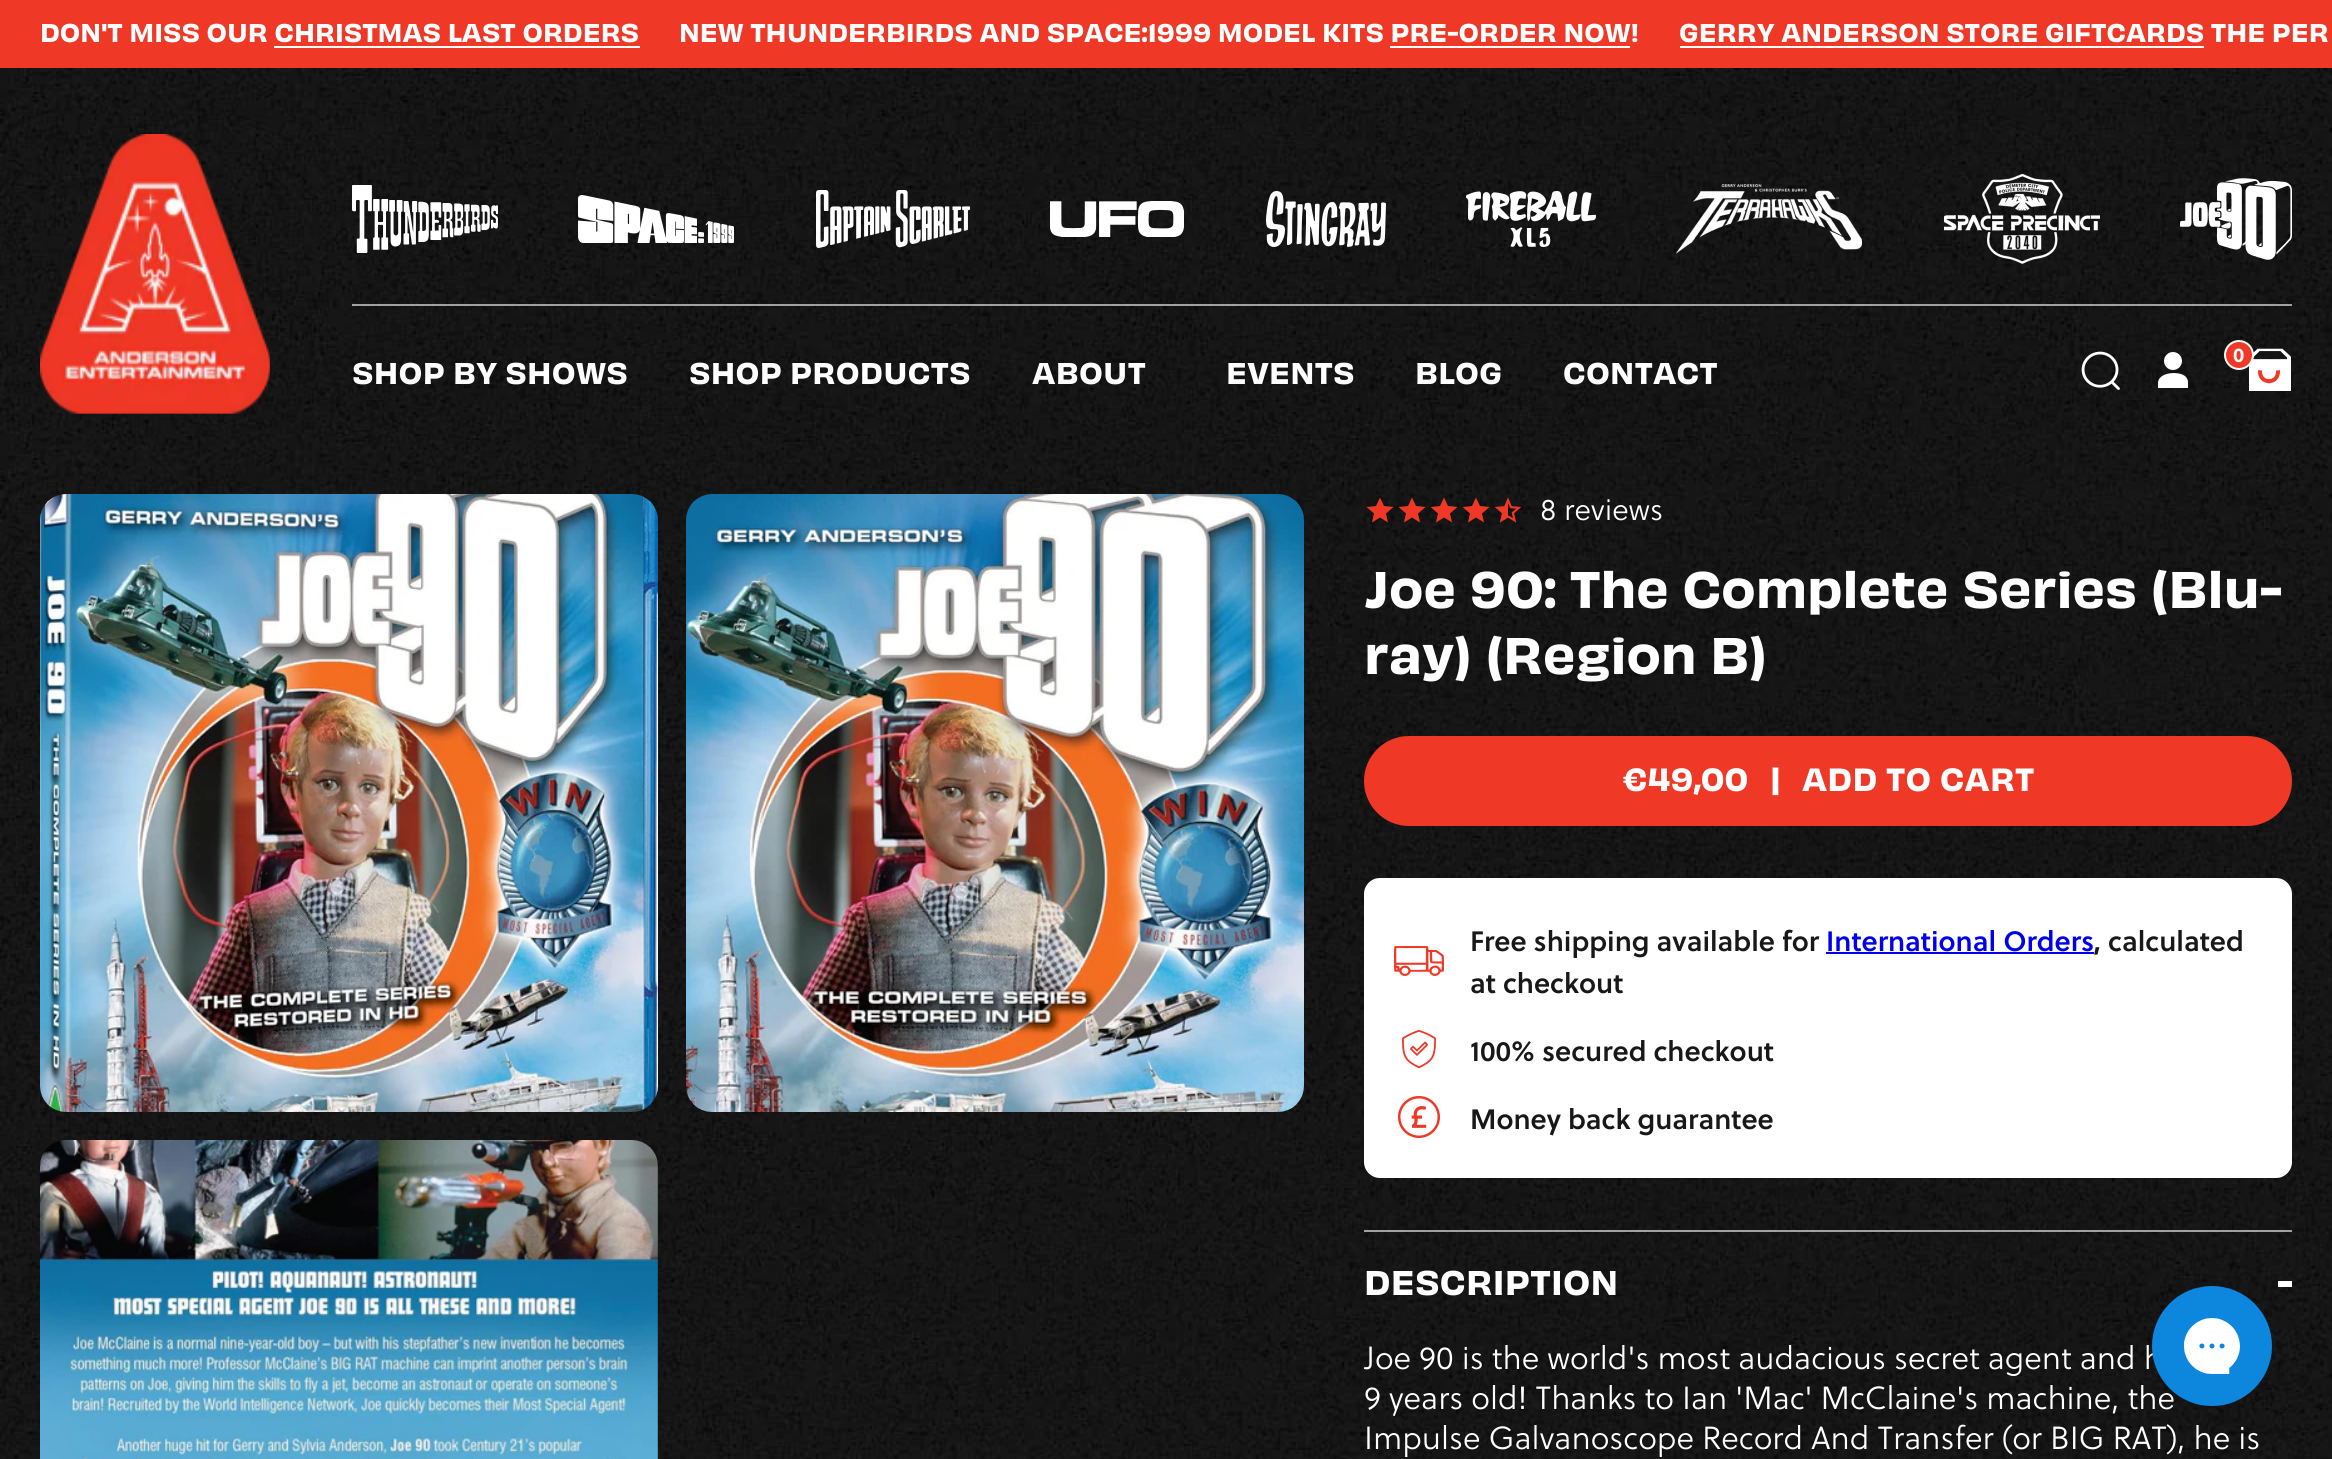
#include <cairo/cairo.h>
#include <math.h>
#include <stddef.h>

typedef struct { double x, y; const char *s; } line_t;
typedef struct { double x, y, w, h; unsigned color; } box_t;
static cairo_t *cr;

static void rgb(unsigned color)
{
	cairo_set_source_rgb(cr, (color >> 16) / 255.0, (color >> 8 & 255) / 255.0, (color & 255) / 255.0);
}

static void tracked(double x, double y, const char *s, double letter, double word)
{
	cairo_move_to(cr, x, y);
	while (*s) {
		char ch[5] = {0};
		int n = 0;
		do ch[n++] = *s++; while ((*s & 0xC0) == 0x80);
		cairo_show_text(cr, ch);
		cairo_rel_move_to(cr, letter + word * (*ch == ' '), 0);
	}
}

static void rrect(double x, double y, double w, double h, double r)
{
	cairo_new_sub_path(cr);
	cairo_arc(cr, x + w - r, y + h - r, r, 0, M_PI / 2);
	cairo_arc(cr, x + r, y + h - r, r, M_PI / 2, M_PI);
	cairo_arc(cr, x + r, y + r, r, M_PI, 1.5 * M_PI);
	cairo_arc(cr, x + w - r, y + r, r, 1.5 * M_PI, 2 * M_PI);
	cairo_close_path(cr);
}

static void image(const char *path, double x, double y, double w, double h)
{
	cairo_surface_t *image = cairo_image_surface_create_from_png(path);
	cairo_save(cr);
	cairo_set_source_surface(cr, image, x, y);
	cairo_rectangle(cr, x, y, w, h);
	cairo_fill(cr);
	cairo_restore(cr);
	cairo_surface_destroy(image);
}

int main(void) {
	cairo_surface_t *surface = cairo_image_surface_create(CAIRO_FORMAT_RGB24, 2332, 1459);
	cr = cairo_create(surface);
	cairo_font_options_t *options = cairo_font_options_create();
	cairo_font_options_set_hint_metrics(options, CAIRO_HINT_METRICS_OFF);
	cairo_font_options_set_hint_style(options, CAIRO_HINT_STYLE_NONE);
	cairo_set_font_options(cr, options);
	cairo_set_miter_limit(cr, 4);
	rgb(0xffffff);
	cairo_paint(cr);
	{
		static const box_t items[] = {
			{0, 0, 2332, 68, 0xef3826},
			{274, 46, 366, 2, 0xffffff},
			{1390, 46, 240, 2, 0xffffff},
			{1680, 46, 524, 2, 0xffffff},
		};
		for (size_t i = 0; i < sizeof items / sizeof *items; i++) {
			rgb(items[i].color);
			cairo_rectangle(cr, items[i].x, items[i].y, items[i].w, items[i].h);
			cairo_fill(cr);
		}
	}
	image("img/1.png", 0, 68, 2332, 366);
	image("img/2.png", 40, 134, 230, 280);
	cairo_set_source_rgba(cr, 1, 1, 1, 0.6);
	cairo_rectangle(cr, 352, 304, 1940, 2);
	cairo_fill(cr);
	image("img/3.png", 352, 185, 146, 68);
	image("img/4.png", 578, 195, 156, 48);
	image("img/5.png", 816, 190, 154, 58);
	image("img/6.png", 1050, 201, 134, 36);
	image("img/7.png", 1266, 191, 120, 56);
	image("img/8.png", 1466, 191, 130, 56);
	image("img/9.png", 1676, 184, 186, 70);
	image("img/10.png", 1944, 174, 156, 90);
	image("img/11.png", 2180, 178, 112, 82);
	image("img/12.png", 2081, 351, 39, 39);
	rgb(0xffffff);
	cairo_arc(cr, 2173, 361, 9, 0, 2 * M_PI);
	cairo_fill(cr);
	cairo_new_path(cr);
	cairo_move_to(cr, 2158, 384);
	cairo_line_to(cr, 2158, 388);
	cairo_line_to(cr, 2188, 388);
	cairo_line_to(cr, 2188, 382.5);
	cairo_curve_to(cr, 2188, 380.5, 2187.5, 379, 2186, 377);
	cairo_curve_to(cr, 2180.5, 370.5, 2157, 371.5, 2158, 384);
	cairo_close_path(cr);
	cairo_fill(cr);
	image("img/13.png", 2249, 348, 42, 43);
	rgb(0xef3826);
	cairo_arc(cr, 2239, 355, 14, 0, 2 * M_PI);
	cairo_fill_preserve(cr);
	rgb(0xffffff);
	cairo_stroke(cr);
	image("img/14.png", 0, 434, 2332, 1025);
	image("img/15.png", 40, 494, 618, 618);
	image("img/16.png", 40, 494, 618, 618);
	image("img/15.png", 686, 494, 618, 618);
	image("img/17.png", 686, 494, 618, 618);
	rgb(0x181818);
	cairo_rectangle(cr, 40, 1140, 618, 319);
	cairo_fill(cr);
	image("img/18.png", 40, 1140, 618, 319);
	image("img/19.png", 40, 1140, 618, 319);
	rgb(0xef3826);
	cairo_new_path(cr);
	cairo_move_to(cr, 1380, 517.5);
	cairo_line_to(cr, 1372, 522.5);
	cairo_line_to(cr, 1374, 513.5);
	cairo_line_to(cr, 1366.5, 507);
	cairo_line_to(cr, 1376, 506);
	cairo_line_to(cr, 1380, 497.5);
	cairo_line_to(cr, 1384, 506);
	cairo_line_to(cr, 1393.5, 507);
	cairo_line_to(cr, 1386, 513.5);
	cairo_line_to(cr, 1388, 522.5);
	cairo_close_path(cr);
	cairo_move_to(cr, 1412, 517.5);
	cairo_line_to(cr, 1404, 522.5);
	cairo_line_to(cr, 1406, 513.5);
	cairo_line_to(cr, 1398.5, 507);
	cairo_line_to(cr, 1408, 506);
	cairo_line_to(cr, 1412, 497.5);
	cairo_line_to(cr, 1416, 506);
	cairo_line_to(cr, 1425.5, 507);
	cairo_line_to(cr, 1418, 513.5);
	cairo_line_to(cr, 1420, 522.5);
	cairo_close_path(cr);
	cairo_fill(cr);
	cairo_new_path(cr);
	cairo_move_to(cr, 1444, 517.5);
	cairo_line_to(cr, 1436, 522.5);
	cairo_line_to(cr, 1438, 513.5);
	cairo_line_to(cr, 1430.5, 507);
	cairo_line_to(cr, 1440, 506);
	cairo_line_to(cr, 1444, 497.5);
	cairo_line_to(cr, 1448, 506);
	cairo_line_to(cr, 1457.5, 507);
	cairo_line_to(cr, 1450, 513.5);
	cairo_line_to(cr, 1452, 522.5);
	cairo_close_path(cr);
	cairo_move_to(cr, 1476, 517.5);
	cairo_line_to(cr, 1468, 522.5);
	cairo_line_to(cr, 1470, 513.5);
	cairo_line_to(cr, 1462.5, 507);
	cairo_line_to(cr, 1472, 506);
	cairo_line_to(cr, 1476, 497.5);
	cairo_line_to(cr, 1480, 506);
	cairo_line_to(cr, 1489.5, 507);
	cairo_line_to(cr, 1482, 513.5);
	cairo_line_to(cr, 1484, 522.5);
	cairo_close_path(cr);
	cairo_fill(cr);
	image("img/20.png", 1494, 497, 28, 26);
	rrect(1364, 736, 928, 90, 45);
	cairo_fill(cr);
	rgb(0xffffff);
	rrect(1364, 878, 928, 300, 16);
	cairo_fill(cr);
	image("img/21.png", 1394, 946, 50, 30);
	rgb(0x0000ee);
	cairo_rectangle(cr, 1826, 952, 268, 2);
	cairo_fill(cr);
	image("img/22.png", 1402, 1030, 34, 38);
	image("img/23.png", 1398, 1096, 42, 42);
	cairo_set_source_rgba(cr, 1, 1, 1, 0.6);
	cairo_rectangle(cr, 1364, 1230, 928, 2);
	cairo_fill(cr);
	rgb(0xffffff);
	cairo_rectangle(cr, 2278, 1281, 14, 6);
	cairo_fill(cr);
	cairo_select_font_face(cr, "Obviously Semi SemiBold", CAIRO_FONT_SLANT_NORMAL, CAIRO_FONT_WEIGHT_NORMAL);
	cairo_set_font_size(cr, 24);
	{
		static const line_t items[] = {
			{40, 42, "DON'T MISS OUR CHRISTMAS LAST ORDERS"},
			{679, 42, "NEW THUNDERBIRDS AND SPACE:1999 MODEL KITS PRE-ORDER NOW!"},
			{1679, 42, "GERRY ANDERSON STORE GIFTCARDS THE PER"},
		};
		for (size_t i = 0; i < sizeof items / sizeof *items; i++) {
			cairo_move_to(cr, items[i].x, items[i].y);
			cairo_show_text(cr, items[i].s);
		}
	}
	cairo_select_font_face(cr, "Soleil", CAIRO_FONT_SLANT_NORMAL, CAIRO_FONT_WEIGHT_BOLD);
	cairo_set_font_size(cr, 20);
	cairo_move_to(cr, 2233, 362);
	cairo_show_text(cr, "0");
	cairo_select_font_face(cr, "Obviously Semi SemiBold", CAIRO_FONT_SLANT_NORMAL, CAIRO_FONT_WEIGHT_NORMAL);
	cairo_set_font_size(cr, 28);
	{
		static const line_t items[] = {
			{352, 384, "SHOP BY SHOWS"},
			{689, 384, "SHOP PRODUCTS"},
			{1032, 384, "ABOUT"},
			{1226, 384, "EVENTS"},
			{1415, 384, "BLOG"},
			{1563, 384, "CONTACT"},
		};
		for (size_t i = 0; i < sizeof items / sizeof *items; i++) {
			tracked(items[i].x, items[i].y, items[i].s, 0.25, 0);
		}
	}
	cairo_select_font_face(cr, "Soleil Light", CAIRO_FONT_SLANT_NORMAL, CAIRO_FONT_WEIGHT_NORMAL);
	cairo_set_font_size(cr, 30);
	cairo_move_to(cr, 1540, 520);
	cairo_show_text(cr, "8 reviews");
	cairo_select_font_face(cr, "Obviously Semi SemiBold", CAIRO_FONT_SLANT_NORMAL, CAIRO_FONT_WEIGHT_NORMAL);
	cairo_set_font_size(cr, 48);
	cairo_move_to(cr, 1364, 608);
	cairo_show_text(cr, "Joe 90: The Complete Series (Blu-");
	cairo_move_to(cr, 1364, 674);
	cairo_show_text(cr, "ray) (Region B)");
	cairo_set_font_size(cr, 30);
	cairo_move_to(cr, 1623, 791);
	cairo_show_text(cr, "€49,00");
	tracked(1770, 791, "|", 0.25, 0);
	tracked(1802, 791, "ADD TO CART", 0.25, 0);
	cairo_select_font_face(cr, "Soleil SemiBold", CAIRO_FONT_SLANT_NORMAL, CAIRO_FONT_WEIGHT_NORMAL);
	cairo_set_font_size(cr, 28);
	rgb(0x181818);
	cairo_move_to(cr, 1470, 951);
	cairo_show_text(cr, "Free shipping available for");
	rgb(0x0000ee);
	cairo_move_to(cr, 1826, 951);
	cairo_show_text(cr, "International Orders");
	rgb(0x181818);
	{
		static const line_t items[] = {
			{2094, 951, ", calculated"},
			{1470, 993, "at checkout"},
			{1470, 1061, "100% secured checkout"},
			{1470, 1129, "Money back guarantee"},
		};
		for (size_t i = 0; i < sizeof items / sizeof *items; i++) {
			cairo_move_to(cr, items[i].x, items[i].y);
			cairo_show_text(cr, items[i].s);
		}
	}
	cairo_select_font_face(cr, "Obviously Semi SemiBold", CAIRO_FONT_SLANT_NORMAL, CAIRO_FONT_WEIGHT_NORMAL);
	cairo_set_font_size(cr, 32);
	rgb(0xffffff);
	tracked(1364, 1295, "DESCRIPTION", 0.25, 0);
	cairo_select_font_face(cr, "Soleil Light", CAIRO_FONT_SLANT_NORMAL, CAIRO_FONT_WEIGHT_NORMAL);
	{
		static const line_t items[] = {
			{1364, 1369, "Joe 90 is the world's most audacious secret agent and h"},
			{1364, 1409, "9 years old! Thanks to Ian 'Mac' McClaine's machine, the"},
			{1364, 1449, "Impulse Galvanoscope Record And Transfer (or BIG RAT), he is"},
		};
		for (size_t i = 0; i < sizeof items / sizeof *items; i++) {
			cairo_move_to(cr, items[i].x, items[i].y);
			cairo_show_text(cr, items[i].s);
		}
	}
	image("img/24.png", 2148, 1286, 124, 124);
	cairo_surface_write_to_png(surface, "page.png");
	cairo_font_options_destroy(options);
	cairo_destroy(cr);
	cairo_surface_destroy(surface);
	return 0;
}
